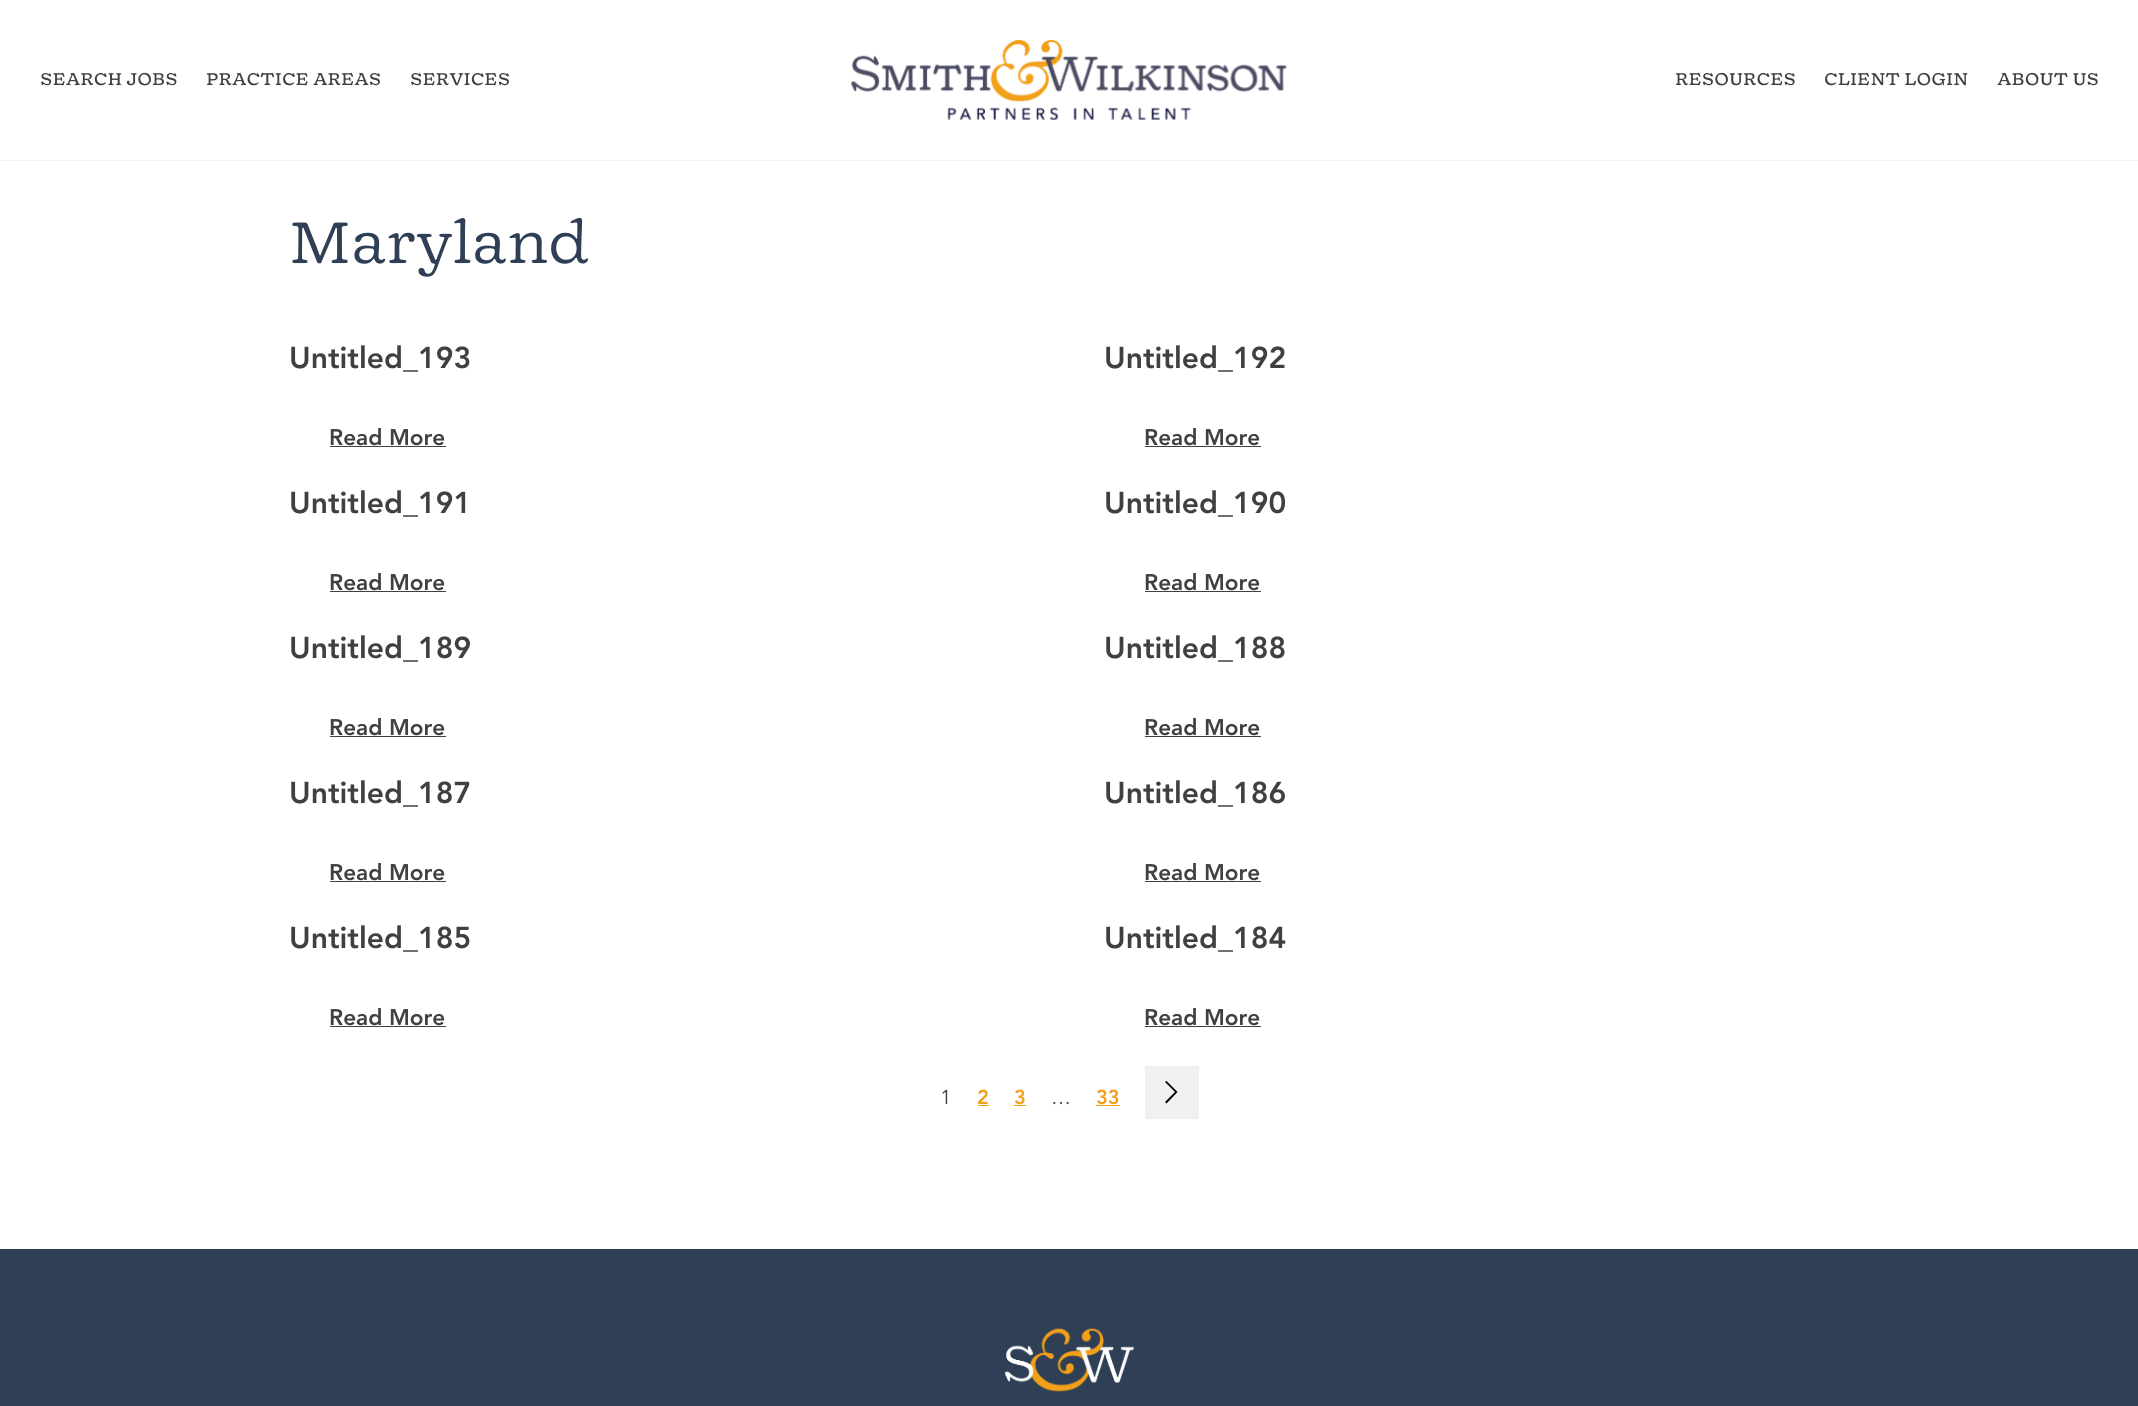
#include <cairo/cairo.h>
#include <math.h>
#include <stddef.h>

typedef struct { double x, y; const char *s; } line_t;
typedef struct { double x, y, w, h; unsigned color; } box_t;
static cairo_t *cr;

static void rgb(unsigned color)
{
	cairo_set_source_rgb(cr, (color >> 16) / 255.0, (color >> 8 & 255) / 255.0, (color & 255) / 255.0);
}

static void image(const char *path, double x, double y, double w, double h)
{
	cairo_surface_t *image = cairo_image_surface_create_from_png(path);
	cairo_save(cr);
	cairo_set_source_surface(cr, image, x, y);
	cairo_rectangle(cr, x, y, w, h);
	cairo_fill(cr);
	cairo_restore(cr);
	cairo_surface_destroy(image);
}

int main(void) {
	cairo_surface_t *surface = cairo_image_surface_create(CAIRO_FORMAT_RGB24, 2138, 1406);
	cr = cairo_create(surface);
	cairo_font_options_t *options = cairo_font_options_create();
	cairo_font_options_set_hint_metrics(options, CAIRO_HINT_METRICS_OFF);
	cairo_font_options_set_hint_style(options, CAIRO_HINT_STYLE_NONE);
	cairo_set_font_options(cr, options);
	cairo_set_miter_limit(cr, 4);
	rgb(0xffffff);
	cairo_paint(cr);
	rgb(0xf0f0f0);
	cairo_rectangle(cr, 0, 160, 2138, 1);
	cairo_fill(cr);
	image("img/1.png", 851, 40, 436, 80);
	{
		static const box_t items[] = {
			{330, 446, 116, 1, 0x404040},
			{1145, 446, 116, 1, 0x404040},
			{330, 591, 116, 1, 0x404040},
			{1145, 591, 116, 1, 0x404040},
			{330, 736, 116, 1, 0x404040},
			{1145, 736, 116, 1, 0x404040},
			{330, 881, 116, 1, 0x404040},
			{1145, 881, 116, 1, 0x404040},
			{330, 1026, 116, 1, 0x404040},
			{1145, 1026, 116, 1, 0x404040},
			{978, 1105, 11, 1, 0xf29f19},
			{1014, 1105, 12, 1, 0xf29f19},
			{1096, 1105, 24, 1, 0xf29f19},
			{1145, 1066, 54, 53, 0xf0f0f0},
		};
		for (size_t i = 0; i < sizeof items / sizeof *items; i++) {
			rgb(items[i].color);
			cairo_rectangle(cr, items[i].x, items[i].y, items[i].w, items[i].h);
			cairo_fill(cr);
		}
	}
	rgb(0x000000);
	cairo_set_fill_rule(cr, CAIRO_FILL_RULE_EVEN_ODD);
	cairo_new_path(cr);
	cairo_move_to(cr, 1165, 1082);
	cairo_line_to(cr, 1166.5, 1081);
	cairo_line_to(cr, 1177.5, 1092);
	cairo_line_to(cr, 1166.5, 1103.5);
	cairo_line_to(cr, 1165, 1102);
	cairo_line_to(cr, 1175, 1092);
	cairo_close_path(cr);
	cairo_fill(cr);
	rgb(0x2f3f55);
	cairo_rectangle(cr, 0, 1249, 2138, 157);
	cairo_fill(cr);
	image("img/2.png", 1005, 1328, 129, 64);
	cairo_select_font_face(cr, "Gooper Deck", CAIRO_FONT_SLANT_NORMAL, CAIRO_FONT_WEIGHT_NORMAL);
	cairo_set_font_size(cr, 17.5);
	rgb(0x404040);
	{
		static const line_t items[] = {
			{40, 85, "SEARCH JOBS"},
			{206, 85, "PRACTICE AREAS"},
			{410, 85, "SERVICES"},
			{1675, 85, "RESOURCES"},
			{1824, 85, "CLIENT LOGIN"},
			{1997, 85, "ABOUT US"},
		};
		for (size_t i = 0; i < sizeof items / sizeof *items; i++) {
			cairo_move_to(cr, items[i].x, items[i].y);
			cairo_show_text(cr, items[i].s);
		}
	}
	cairo_select_font_face(cr, "Gooper Deck Light", CAIRO_FONT_SLANT_NORMAL, CAIRO_FONT_WEIGHT_NORMAL);
	cairo_set_font_size(cr, 60);
	rgb(0x2f3f55);
	cairo_move_to(cr, 289, 263);
	cairo_show_text(cr, "Maryland");
	cairo_select_font_face(cr, "Avenir", CAIRO_FONT_SLANT_NORMAL, CAIRO_FONT_WEIGHT_NORMAL);
	cairo_set_font_size(cr, 30);
	rgb(0x404040);
	cairo_move_to(cr, 289, 368);
	cairo_show_text(cr, "Untitled_193");
	cairo_set_font_size(cr, 22.5);
	cairo_move_to(cr, 329, 445);
	cairo_show_text(cr, "Read More");
	cairo_set_font_size(cr, 30);
	cairo_move_to(cr, 1104, 368);
	cairo_show_text(cr, "Untitled_192");
	cairo_set_font_size(cr, 22.5);
	cairo_move_to(cr, 1144, 445);
	cairo_show_text(cr, "Read More");
	cairo_set_font_size(cr, 30);
	cairo_move_to(cr, 289, 513);
	cairo_show_text(cr, "Untitled_191");
	cairo_set_font_size(cr, 22.5);
	cairo_move_to(cr, 329, 590);
	cairo_show_text(cr, "Read More");
	cairo_set_font_size(cr, 30);
	cairo_move_to(cr, 1104, 513);
	cairo_show_text(cr, "Untitled_190");
	cairo_set_font_size(cr, 22.5);
	cairo_move_to(cr, 1144, 590);
	cairo_show_text(cr, "Read More");
	cairo_set_font_size(cr, 30);
	cairo_move_to(cr, 289, 658);
	cairo_show_text(cr, "Untitled_189");
	cairo_set_font_size(cr, 22.5);
	cairo_move_to(cr, 329, 735);
	cairo_show_text(cr, "Read More");
	cairo_set_font_size(cr, 30);
	cairo_move_to(cr, 1104, 658);
	cairo_show_text(cr, "Untitled_188");
	cairo_set_font_size(cr, 22.5);
	cairo_move_to(cr, 1144, 735);
	cairo_show_text(cr, "Read More");
	cairo_set_font_size(cr, 30);
	cairo_move_to(cr, 289, 803);
	cairo_show_text(cr, "Untitled_187");
	cairo_set_font_size(cr, 22.5);
	cairo_move_to(cr, 329, 880);
	cairo_show_text(cr, "Read More");
	cairo_set_font_size(cr, 30);
	cairo_move_to(cr, 1104, 803);
	cairo_show_text(cr, "Untitled_186");
	cairo_set_font_size(cr, 22.5);
	cairo_move_to(cr, 1144, 880);
	cairo_show_text(cr, "Read More");
	cairo_set_font_size(cr, 30);
	cairo_move_to(cr, 289, 948);
	cairo_show_text(cr, "Untitled_185");
	cairo_set_font_size(cr, 22.5);
	cairo_move_to(cr, 329, 1025);
	cairo_show_text(cr, "Read More");
	cairo_set_font_size(cr, 30);
	cairo_move_to(cr, 1104, 948);
	cairo_show_text(cr, "Untitled_184");
	cairo_set_font_size(cr, 22.5);
	cairo_move_to(cr, 1144, 1025);
	cairo_show_text(cr, "Read More");
	cairo_select_font_face(cr, "Avenir Next", CAIRO_FONT_SLANT_NORMAL, CAIRO_FONT_WEIGHT_NORMAL);
	cairo_set_font_size(cr, 20);
	cairo_move_to(cr, 940, 1104);
	cairo_show_text(cr, "1");
	cairo_select_font_face(cr, "Avenir", CAIRO_FONT_SLANT_NORMAL, CAIRO_FONT_WEIGHT_NORMAL);
	rgb(0xf29f19);
	cairo_move_to(cr, 977, 1104);
	cairo_show_text(cr, "2");
	cairo_move_to(cr, 1014, 1104);
	cairo_show_text(cr, "3");
	cairo_select_font_face(cr, "Avenir Next", CAIRO_FONT_SLANT_NORMAL, CAIRO_FONT_WEIGHT_NORMAL);
	rgb(0x404040);
	cairo_move_to(cr, 1051, 1104);
	cairo_show_text(cr, "…");
	cairo_select_font_face(cr, "Avenir", CAIRO_FONT_SLANT_NORMAL, CAIRO_FONT_WEIGHT_NORMAL);
	rgb(0xf29f19);
	cairo_move_to(cr, 1096, 1104);
	cairo_show_text(cr, "33");
	cairo_surface_write_to_png(surface, "page.png");
	cairo_font_options_destroy(options);
	cairo_destroy(cr);
	cairo_surface_destroy(surface);
	return 0;
}
